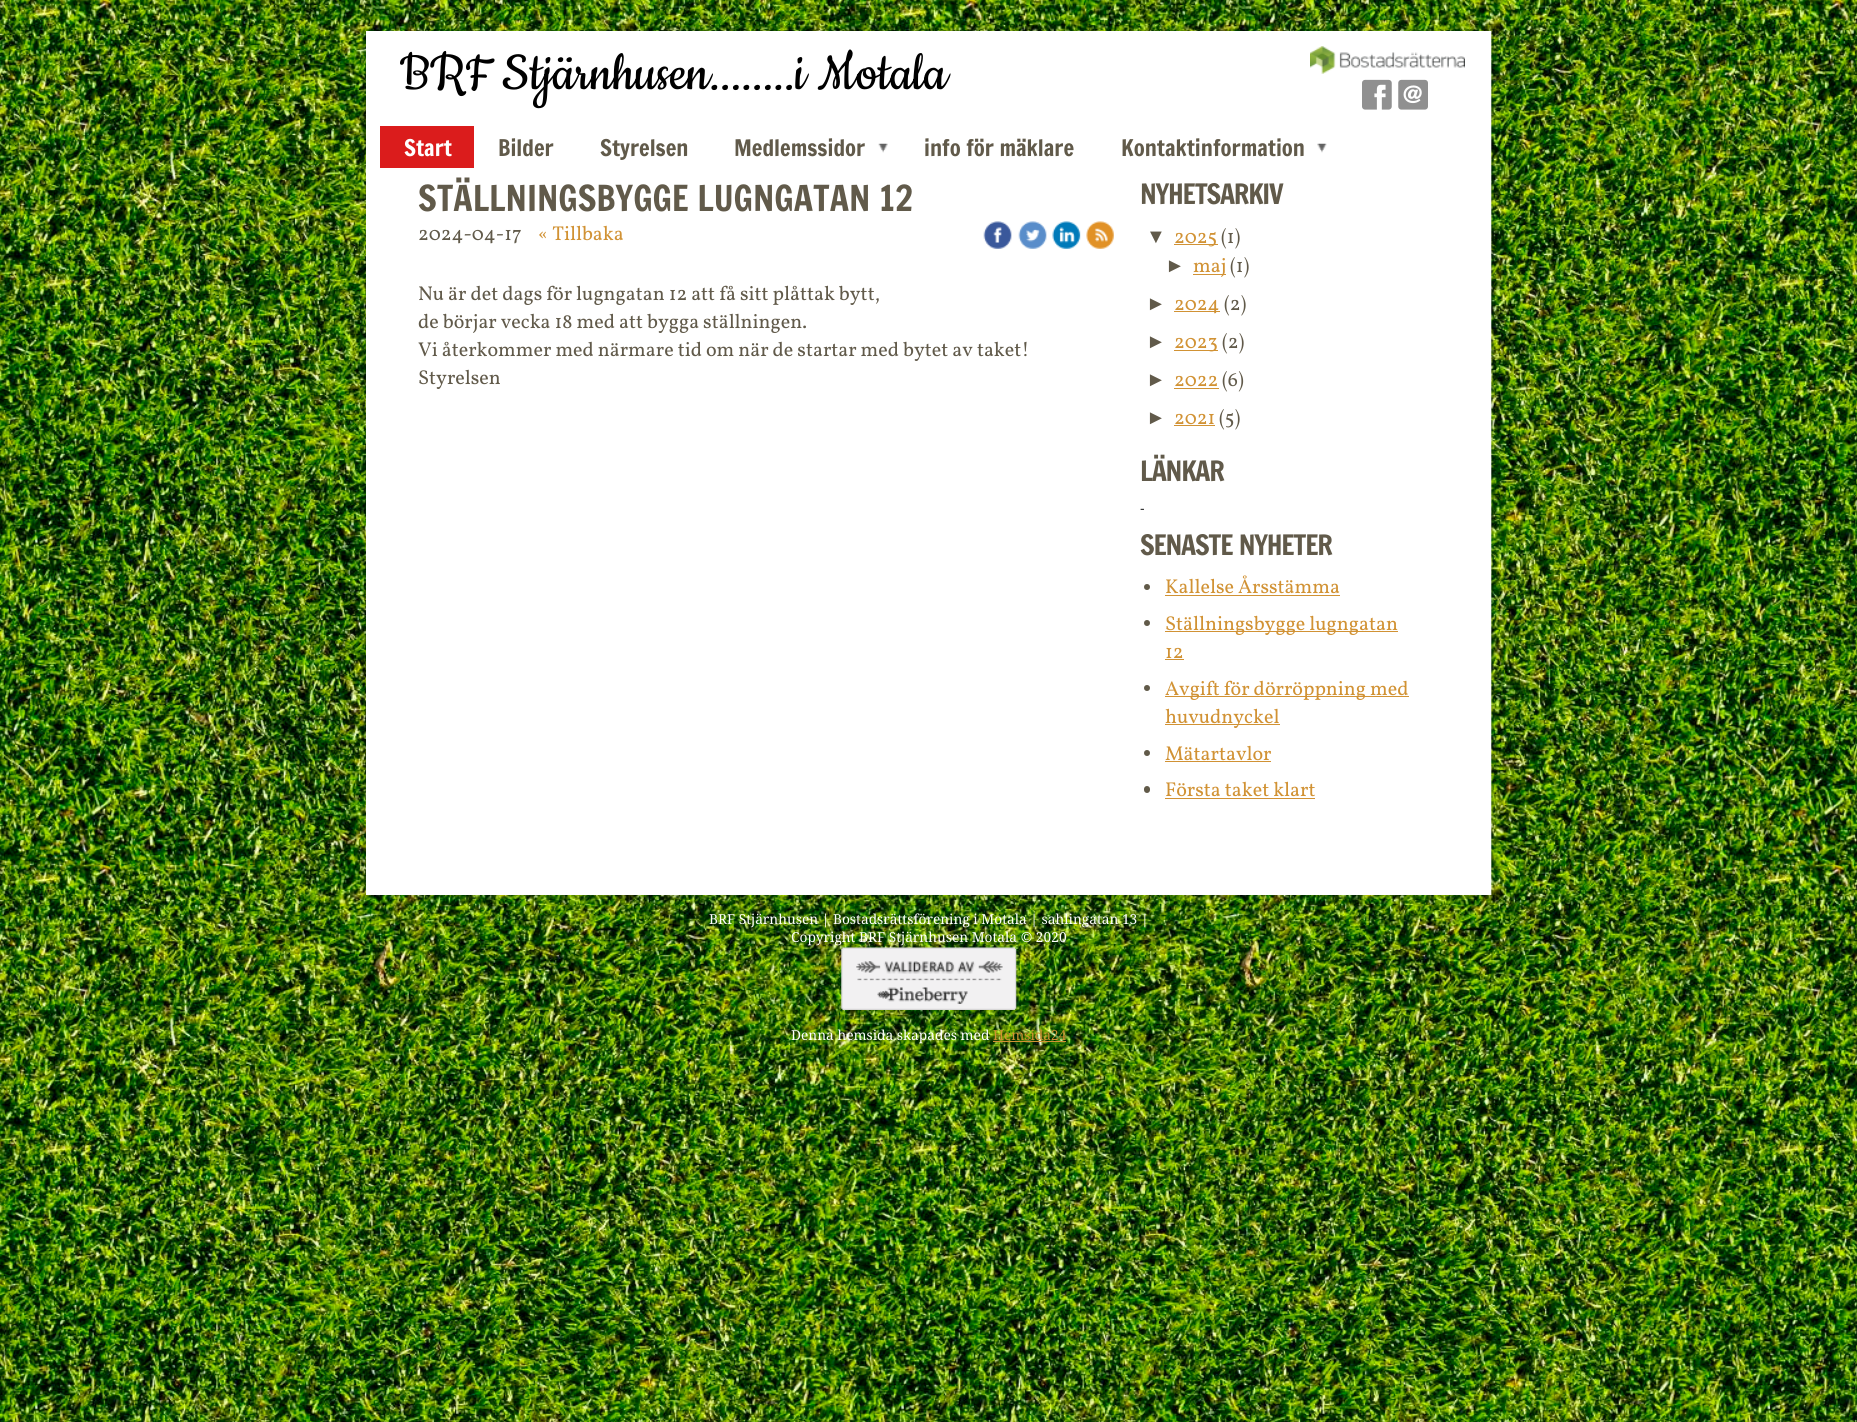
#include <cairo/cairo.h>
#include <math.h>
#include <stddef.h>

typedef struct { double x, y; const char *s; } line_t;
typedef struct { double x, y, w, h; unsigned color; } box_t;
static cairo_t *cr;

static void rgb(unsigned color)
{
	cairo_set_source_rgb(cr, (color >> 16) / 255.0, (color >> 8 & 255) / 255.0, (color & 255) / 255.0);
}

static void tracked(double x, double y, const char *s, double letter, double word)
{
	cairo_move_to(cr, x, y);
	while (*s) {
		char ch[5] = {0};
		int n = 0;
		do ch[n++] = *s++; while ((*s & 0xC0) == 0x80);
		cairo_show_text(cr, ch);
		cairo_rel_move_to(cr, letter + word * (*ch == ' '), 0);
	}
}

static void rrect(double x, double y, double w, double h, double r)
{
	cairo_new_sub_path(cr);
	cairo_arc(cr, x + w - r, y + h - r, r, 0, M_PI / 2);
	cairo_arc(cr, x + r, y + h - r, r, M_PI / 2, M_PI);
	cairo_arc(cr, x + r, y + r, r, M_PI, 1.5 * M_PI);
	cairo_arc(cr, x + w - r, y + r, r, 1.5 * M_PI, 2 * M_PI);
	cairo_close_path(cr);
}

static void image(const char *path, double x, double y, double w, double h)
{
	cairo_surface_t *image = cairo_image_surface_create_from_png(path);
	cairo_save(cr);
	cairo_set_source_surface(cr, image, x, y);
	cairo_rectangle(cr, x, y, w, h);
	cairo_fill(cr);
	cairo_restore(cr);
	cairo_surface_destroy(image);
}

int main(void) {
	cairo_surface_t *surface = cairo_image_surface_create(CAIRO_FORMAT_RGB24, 1857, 1422);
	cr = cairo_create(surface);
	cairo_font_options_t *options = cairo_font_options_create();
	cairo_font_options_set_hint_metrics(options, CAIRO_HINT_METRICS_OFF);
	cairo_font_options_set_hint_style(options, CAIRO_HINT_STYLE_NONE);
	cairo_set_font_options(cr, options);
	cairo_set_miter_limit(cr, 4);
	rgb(0xffffff);
	cairo_paint(cr);
	image("img/1.png", 0, 0, 1857, 1422);
	image("img/2.png", 364, 26, 1128, 7);
	image("img/3.png", 361, 31, 1135, 864);
	rgb(0xffffff);
	cairo_rectangle(cr, 366, 31, 1125, 864);
	cairo_fill(cr);
	image("img/4.png", 1310, 46, 155, 28);
	image("img/5.png", 1362, 79, 30, 31);
	image("img/6.png", 1398, 79, 30, 31);
	rgb(0xdb1c1c);
	cairo_rectangle(cr, 380, 126, 94, 42);
	cairo_fill(cr);
	image("img/7.png", 878, 143, 10, 10);
	image("img/8.png", 1317, 143, 10, 10);
	image("img/9.png", 983, 221, 29, 28);
	image("img/10.png", 1018, 221, 29, 28);
	image("img/11.png", 1052, 221, 29, 28);
	image("img/12.png", 1086, 221, 28, 28);
	{
		static const box_t items[] = {
			{1174, 244, 44, 1, 0xd19234},
			{1193, 274, 33, 1, 0xd19234},
			{1174, 311, 46, 1, 0xd19234},
			{1174, 350, 44, 1, 0xd19234},
			{1174, 388, 45, 1, 0xd19234},
			{1174, 425, 41, 1, 0xd19234},
		};
		for (size_t i = 0; i < sizeof items / sizeof *items; i++) {
			rgb(items[i].color);
			cairo_rectangle(cr, items[i].x, items[i].y, items[i].w, items[i].h);
			cairo_fill(cr);
		}
	}
	rgb(0x615a49);
	cairo_arc(cr, 1147, 587, 3, 0, 2 * M_PI);
	cairo_fill(cr);
	rgb(0xd19234);
	cairo_rectangle(cr, 1165, 595, 175, 1);
	cairo_fill(cr);
	rgb(0x615a49);
	cairo_arc(cr, 1147, 623, 3, 0, 2 * M_PI);
	cairo_fill(cr);
	rgb(0xd19234);
	cairo_rectangle(cr, 1165, 631, 233, 1);
	cairo_fill(cr);
	cairo_rectangle(cr, 1165, 659, 19, 1);
	cairo_fill(cr);
	rgb(0x615a49);
	cairo_arc(cr, 1147, 688, 3, 0, 2 * M_PI);
	cairo_fill(cr);
	rgb(0xd19234);
	cairo_rectangle(cr, 1165, 696, 244, 1);
	cairo_fill(cr);
	cairo_rectangle(cr, 1165, 724, 115, 1);
	cairo_fill(cr);
	rgb(0x615a49);
	cairo_arc(cr, 1147, 753, 3, 0, 2 * M_PI);
	cairo_fill(cr);
	rgb(0xd19234);
	cairo_rectangle(cr, 1165, 761, 106, 1);
	cairo_fill(cr);
	rgb(0x615a49);
	rrect(1144, 786, 6, 7, 3);
	cairo_fill(cr);
	rgb(0xd19234);
	cairo_rectangle(cr, 1165, 798, 150, 1);
	cairo_fill(cr);
	image("img/13.png", 364, 895, 1128, 5);
	image("img/14.png", 841, 947, 176, 63);
	cairo_rectangle(cr, 993, 1041, 73, 1);
	cairo_fill(cr);
	cairo_select_font_face(cr, "Cookie", CAIRO_FONT_SLANT_NORMAL, CAIRO_FONT_WEIGHT_NORMAL);
	cairo_set_font_size(cr, 60);
	rgb(0x000000);
	cairo_move_to(cr, 400, 89);
	cairo_show_text(cr, "BRF Stjärnhusen........i Motala");
	cairo_select_font_face(cr, "Francois One", CAIRO_FONT_SLANT_NORMAL, CAIRO_FONT_WEIGHT_NORMAL);
	cairo_set_font_size(cr, 22.5);
	rgb(0xffffff);
	cairo_move_to(cr, 404, 156);
	cairo_show_text(cr, "Start");
	rgb(0x615a4a);
	{
		static const line_t items[] = {
			{498, 156, "Bilder"},
			{600, 156, "Styrelsen"},
			{734, 156, "Medlemssidor"},
			{924, 156, "info för mäklare"},
			{1121, 156, "Kontaktinformation"},
		};
		for (size_t i = 0; i < sizeof items / sizeof *items; i++) {
			cairo_move_to(cr, items[i].x, items[i].y);
			cairo_show_text(cr, items[i].s);
		}
	}
	cairo_set_font_size(cr, 35);
	cairo_move_to(cr, 418, 211);
	cairo_show_text(cr, "STÄLLNINGSBYGGE LUGNGATAN 12");
	cairo_select_font_face(cr, "Vollkorn", CAIRO_FONT_SLANT_NORMAL, CAIRO_FONT_WEIGHT_NORMAL);
	cairo_set_font_size(cr, 20);
	cairo_move_to(cr, 418, 240);
	cairo_show_text(cr, "2024-04-17");
	rgb(0xd19234);
	cairo_move_to(cr, 538, 240);
	cairo_show_text(cr, "« Tillbaka");
	rgb(0x615a4a);
	{
		static const line_t items[] = {
			{418, 300, "Nu är det dags för lugngatan 12 att få sitt plåttak bytt,"},
			{418, 328, "de börjar vecka 18 med att bygga ställningen."},
			{418, 356, "Vi återkommer med närmare tid om när de startar med bytet av taket!"},
			{418, 384, "Styrelsen"},
		};
		for (size_t i = 0; i < sizeof items / sizeof *items; i++) {
			cairo_move_to(cr, items[i].x, items[i].y);
			cairo_show_text(cr, items[i].s);
		}
	}
	cairo_select_font_face(cr, "Francois One", CAIRO_FONT_SLANT_NORMAL, CAIRO_FONT_WEIGHT_NORMAL);
	cairo_set_font_size(cr, 27.5);
	tracked(1140, 204, "NYHETSARKIV", -1.25, 0);
	cairo_select_font_face(cr, "Liberation Sans", CAIRO_FONT_SLANT_NORMAL, CAIRO_FONT_WEIGHT_NORMAL);
	cairo_set_font_size(cr, 20);
	cairo_move_to(cr, 1146, 243);
	cairo_show_text(cr, "▼");
	cairo_select_font_face(cr, "Vollkorn", CAIRO_FONT_SLANT_NORMAL, CAIRO_FONT_WEIGHT_NORMAL);
	rgb(0xd19234);
	cairo_move_to(cr, 1174, 243);
	cairo_show_text(cr, "2025");
	rgb(0x615a4a);
	cairo_move_to(cr, 1221, 243);
	cairo_show_text(cr, "(1)");
	cairo_select_font_face(cr, "Liberation Sans", CAIRO_FONT_SLANT_NORMAL, CAIRO_FONT_WEIGHT_NORMAL);
	cairo_move_to(cr, 1165, 272);
	cairo_show_text(cr, "►");
	cairo_select_font_face(cr, "Vollkorn", CAIRO_FONT_SLANT_NORMAL, CAIRO_FONT_WEIGHT_NORMAL);
	rgb(0xd19234);
	cairo_move_to(cr, 1193, 272);
	cairo_show_text(cr, "maj");
	rgb(0x615a4a);
	cairo_move_to(cr, 1230, 272);
	cairo_show_text(cr, "(1)");
	cairo_select_font_face(cr, "Liberation Sans", CAIRO_FONT_SLANT_NORMAL, CAIRO_FONT_WEIGHT_NORMAL);
	cairo_move_to(cr, 1146, 310);
	cairo_show_text(cr, "►");
	cairo_select_font_face(cr, "Vollkorn", CAIRO_FONT_SLANT_NORMAL, CAIRO_FONT_WEIGHT_NORMAL);
	rgb(0xd19234);
	cairo_move_to(cr, 1174, 310);
	cairo_show_text(cr, "2024");
	rgb(0x615a4a);
	cairo_move_to(cr, 1224, 310);
	cairo_show_text(cr, "(2)");
	cairo_select_font_face(cr, "Liberation Sans", CAIRO_FONT_SLANT_NORMAL, CAIRO_FONT_WEIGHT_NORMAL);
	cairo_move_to(cr, 1146, 348);
	cairo_show_text(cr, "►");
	cairo_select_font_face(cr, "Vollkorn", CAIRO_FONT_SLANT_NORMAL, CAIRO_FONT_WEIGHT_NORMAL);
	rgb(0xd19234);
	cairo_move_to(cr, 1174, 348);
	cairo_show_text(cr, "2023");
	rgb(0x615a4a);
	cairo_move_to(cr, 1222, 348);
	cairo_show_text(cr, "(2)");
	cairo_select_font_face(cr, "Liberation Sans", CAIRO_FONT_SLANT_NORMAL, CAIRO_FONT_WEIGHT_NORMAL);
	cairo_move_to(cr, 1146, 386);
	cairo_show_text(cr, "►");
	cairo_select_font_face(cr, "Vollkorn", CAIRO_FONT_SLANT_NORMAL, CAIRO_FONT_WEIGHT_NORMAL);
	rgb(0xd19234);
	cairo_move_to(cr, 1174, 386);
	cairo_show_text(cr, "2022");
	rgb(0x615a4a);
	cairo_move_to(cr, 1222, 386);
	cairo_show_text(cr, "(6)");
	cairo_select_font_face(cr, "Liberation Sans", CAIRO_FONT_SLANT_NORMAL, CAIRO_FONT_WEIGHT_NORMAL);
	cairo_move_to(cr, 1146, 424);
	cairo_show_text(cr, "►");
	cairo_select_font_face(cr, "Vollkorn", CAIRO_FONT_SLANT_NORMAL, CAIRO_FONT_WEIGHT_NORMAL);
	rgb(0xd19234);
	cairo_move_to(cr, 1174, 424);
	cairo_show_text(cr, "2021");
	rgb(0x615a4a);
	cairo_move_to(cr, 1219, 424);
	cairo_show_text(cr, "(5)");
	cairo_select_font_face(cr, "Francois One", CAIRO_FONT_SLANT_NORMAL, CAIRO_FONT_WEIGHT_NORMAL);
	cairo_set_font_size(cr, 27.5);
	tracked(1140, 481, "LÄNKAR", -1.25, 0);
	cairo_select_font_face(cr, "Liberation Sans", CAIRO_FONT_SLANT_NORMAL, CAIRO_FONT_WEIGHT_NORMAL);
	cairo_set_font_size(cr, 13.75);
	rgb(0x222222);
	cairo_move_to(cr, 1140, 513);
	cairo_show_text(cr, "-");
	cairo_select_font_face(cr, "Francois One", CAIRO_FONT_SLANT_NORMAL, CAIRO_FONT_WEIGHT_NORMAL);
	cairo_set_font_size(cr, 27.5);
	rgb(0x615a4a);
	tracked(1140, 555, "SENASTE NYHETER", -1.25, 1);
	cairo_select_font_face(cr, "Vollkorn", CAIRO_FONT_SLANT_NORMAL, CAIRO_FONT_WEIGHT_NORMAL);
	cairo_set_font_size(cr, 20);
	rgb(0xd19234);
	{
		static const line_t items[] = {
			{1165, 593, "Kallelse Årsstämma"},
			{1165, 630, "Ställningsbygge lugngatan"},
			{1165, 658, "12"},
			{1165, 695, "Avgift för dörröppning med"},
			{1165, 723, "huvudnyckel"},
			{1165, 760, "Mätartavlor"},
			{1165, 796, "Första taket klart"},
		};
		for (size_t i = 0; i < sizeof items / sizeof *items; i++) {
			cairo_move_to(cr, items[i].x, items[i].y);
			cairo_show_text(cr, items[i].s);
		}
	}
	cairo_select_font_face(cr, "Droid Serif", CAIRO_FONT_SLANT_NORMAL, CAIRO_FONT_WEIGHT_NORMAL);
	cairo_set_font_size(cr, 13.75);
	rgb(0xffffff);
	{
		static const line_t items[] = {
			{709, 924, "BRF Stjärnhusen | Bostadsrättsförening i Motala | sahlingatan 13 |"},
			{791, 942, "Copyright BRF Stjärnhusen Motala © 2020"},
			{791, 1040, "Denna hemsida skapades med"},
		};
		for (size_t i = 0; i < sizeof items / sizeof *items; i++) {
			cairo_move_to(cr, items[i].x, items[i].y);
			cairo_show_text(cr, items[i].s);
		}
	}
	rgb(0xd19234);
	cairo_move_to(cr, 993, 1040);
	cairo_show_text(cr, "Hemsida24");
	cairo_surface_write_to_png(surface, "page.png");
	cairo_font_options_destroy(options);
	cairo_destroy(cr);
	cairo_surface_destroy(surface);
	return 0;
}
